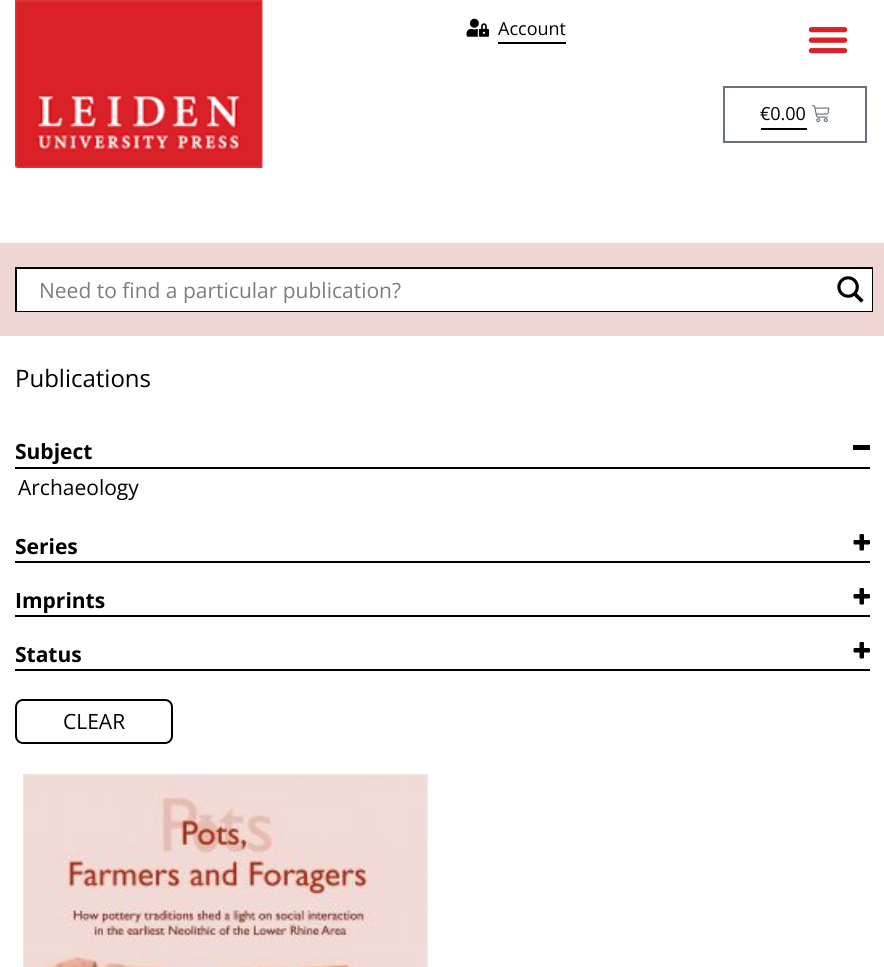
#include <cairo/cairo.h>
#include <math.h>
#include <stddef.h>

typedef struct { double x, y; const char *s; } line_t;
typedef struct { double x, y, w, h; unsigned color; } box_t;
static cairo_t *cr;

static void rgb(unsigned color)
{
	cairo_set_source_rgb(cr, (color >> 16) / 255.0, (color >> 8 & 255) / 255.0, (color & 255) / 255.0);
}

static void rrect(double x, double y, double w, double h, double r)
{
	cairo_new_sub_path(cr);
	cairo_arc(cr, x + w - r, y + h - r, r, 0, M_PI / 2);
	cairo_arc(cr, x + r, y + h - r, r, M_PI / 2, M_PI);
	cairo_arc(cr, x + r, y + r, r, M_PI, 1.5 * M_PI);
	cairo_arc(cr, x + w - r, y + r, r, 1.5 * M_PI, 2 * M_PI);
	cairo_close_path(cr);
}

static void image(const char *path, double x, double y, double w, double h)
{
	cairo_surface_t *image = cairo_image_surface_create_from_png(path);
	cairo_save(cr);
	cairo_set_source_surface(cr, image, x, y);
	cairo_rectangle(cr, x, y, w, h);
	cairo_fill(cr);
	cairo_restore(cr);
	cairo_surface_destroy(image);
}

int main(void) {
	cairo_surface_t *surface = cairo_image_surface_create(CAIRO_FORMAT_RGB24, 884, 967);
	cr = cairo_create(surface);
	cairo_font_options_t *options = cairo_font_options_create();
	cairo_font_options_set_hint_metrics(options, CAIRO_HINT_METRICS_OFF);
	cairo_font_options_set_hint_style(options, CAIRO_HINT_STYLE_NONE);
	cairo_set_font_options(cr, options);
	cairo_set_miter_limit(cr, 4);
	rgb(0xffffff);
	cairo_paint(cr);
	image("img/1.png", 15, 0, 248, 168);
	image("img/2.png", 466, 18, 23, 19);
	rgb(0x000000);
	cairo_rectangle(cr, 498, 42, 68, 2);
	cairo_fill(cr);
	image("img/3.png", 808, 27, 40, 27);
	cairo_rectangle(cr, 724, 87, 142, 55);
	rgb(0x69727d);
	cairo_stroke(cr);
	rgb(0x000000);
	cairo_rectangle(cr, 761, 128, 46, 2);
	cairo_fill(cr);
	image("img/4.png", 811, 105, 19, 18);
	rgb(0xf0d5d5);
	cairo_rectangle(cr, 0, 243, 884, 93);
	cairo_fill(cr);
	cairo_rectangle(cr, 16, 268, 856, 43);
	rgb(0x000000);
	cairo_stroke(cr);
	rgb(0xffffff);
	cairo_rectangle(cr, 17, 269, 855, 42);
	cairo_fill(cr);
	image("img/5.png", 837, 276, 27, 27);
	{
		static const box_t items[] = {
			{15, 467, 855, 2, 0x000000},
			{853, 445, 17, 5, 0x000000},
			{15, 561, 855, 2, 0x000000},
		};
		for (size_t i = 0; i < sizeof items / sizeof *items; i++) {
			rgb(items[i].color);
			cairo_rectangle(cr, items[i].x, items[i].y, items[i].w, items[i].h);
			cairo_fill(cr);
		}
	}
	image("img/6.png", 853, 534, 17, 17);
	cairo_rectangle(cr, 15, 615, 855, 2);
	cairo_fill(cr);
	image("img/6.png", 853, 588, 17, 17);
	cairo_rectangle(cr, 15, 669, 855, 2);
	cairo_fill(cr);
	image("img/6.png", 853, 642, 17, 17);
	rrect(16, 700, 156, 43, 7);
	cairo_stroke(cr);
	cairo_rectangle(cr, 24, 775, 403, 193);
	rgb(0xe7e7e7);
	cairo_stroke(cr);
	image("img/7.png", 24, 775, 402, 192);
	cairo_select_font_face(cr, "Open Sans", CAIRO_FONT_SLANT_NORMAL, CAIRO_FONT_WEIGHT_NORMAL);
	cairo_set_font_size(cr, 18);
	rgb(0x000000);
	cairo_move_to(cr, 498, 35);
	cairo_show_text(cr, "Account");
	cairo_move_to(cr, 760, 120);
	cairo_show_text(cr, "€0.00");
	cairo_set_font_size(cr, 21);
	rgb(0x7d7d7d);
	cairo_move_to(cr, 39, 298);
	cairo_show_text(cr, "Need to find a particular publication?");
	cairo_set_font_size(cr, 24);
	rgb(0x000000);
	cairo_move_to(cr, 15, 387);
	cairo_show_text(cr, "Publications");
	cairo_select_font_face(cr, "Open Sans", CAIRO_FONT_SLANT_NORMAL, CAIRO_FONT_WEIGHT_BOLD);
	cairo_set_font_size(cr, 21);
	cairo_move_to(cr, 15, 459);
	cairo_show_text(cr, "Subject");
	cairo_select_font_face(cr, "Open Sans", CAIRO_FONT_SLANT_NORMAL, CAIRO_FONT_WEIGHT_NORMAL);
	cairo_move_to(cr, 18, 495);
	cairo_show_text(cr, "Archaeology");
	cairo_select_font_face(cr, "Open Sans", CAIRO_FONT_SLANT_NORMAL, CAIRO_FONT_WEIGHT_BOLD);
	{
		static const line_t items[] = {
			{15, 554, "Series"},
			{15, 608, "Imprints"},
			{15, 662, "Status"},
		};
		for (size_t i = 0; i < sizeof items / sizeof *items; i++) {
			cairo_move_to(cr, items[i].x, items[i].y);
			cairo_show_text(cr, items[i].s);
		}
	}
	cairo_select_font_face(cr, "Open Sans", CAIRO_FONT_SLANT_NORMAL, CAIRO_FONT_WEIGHT_NORMAL);
	cairo_move_to(cr, 63, 729);
	cairo_show_text(cr, "CLEAR");
	cairo_surface_write_to_png(surface, "page.png");
	cairo_font_options_destroy(options);
	cairo_destroy(cr);
	cairo_surface_destroy(surface);
	return 0;
}
